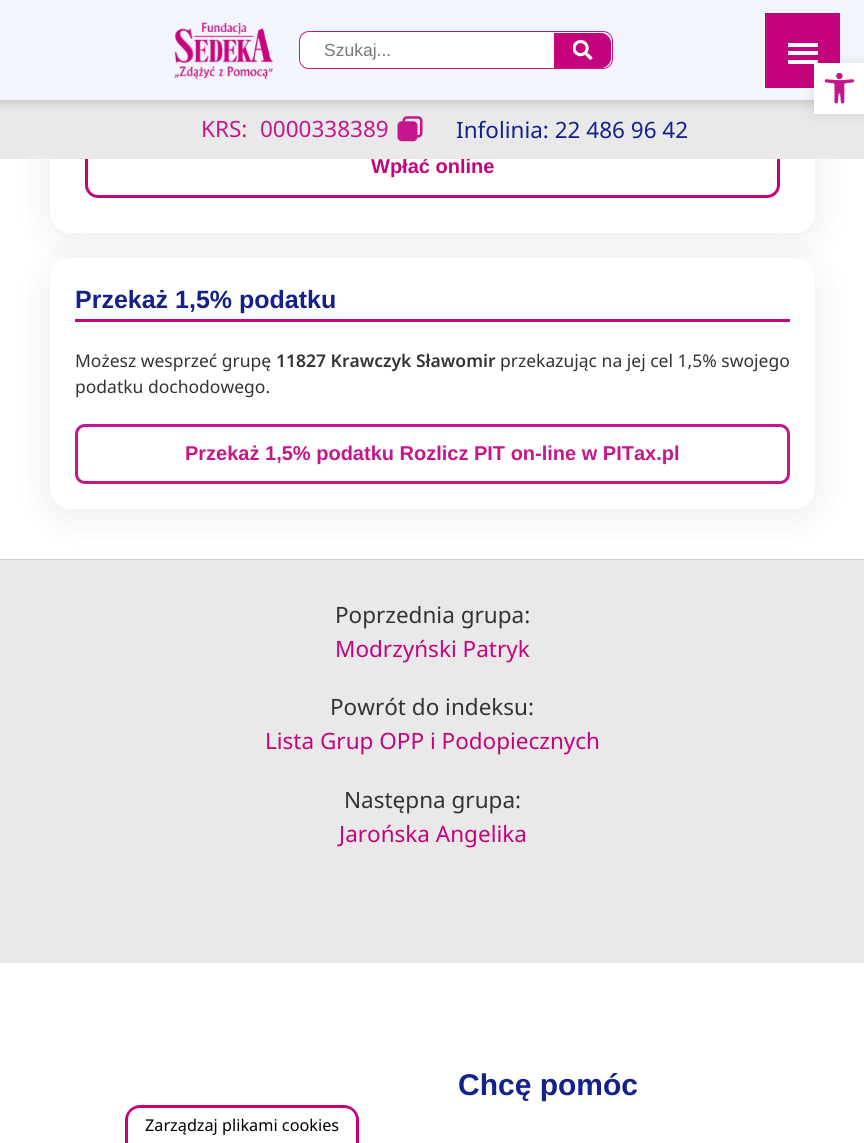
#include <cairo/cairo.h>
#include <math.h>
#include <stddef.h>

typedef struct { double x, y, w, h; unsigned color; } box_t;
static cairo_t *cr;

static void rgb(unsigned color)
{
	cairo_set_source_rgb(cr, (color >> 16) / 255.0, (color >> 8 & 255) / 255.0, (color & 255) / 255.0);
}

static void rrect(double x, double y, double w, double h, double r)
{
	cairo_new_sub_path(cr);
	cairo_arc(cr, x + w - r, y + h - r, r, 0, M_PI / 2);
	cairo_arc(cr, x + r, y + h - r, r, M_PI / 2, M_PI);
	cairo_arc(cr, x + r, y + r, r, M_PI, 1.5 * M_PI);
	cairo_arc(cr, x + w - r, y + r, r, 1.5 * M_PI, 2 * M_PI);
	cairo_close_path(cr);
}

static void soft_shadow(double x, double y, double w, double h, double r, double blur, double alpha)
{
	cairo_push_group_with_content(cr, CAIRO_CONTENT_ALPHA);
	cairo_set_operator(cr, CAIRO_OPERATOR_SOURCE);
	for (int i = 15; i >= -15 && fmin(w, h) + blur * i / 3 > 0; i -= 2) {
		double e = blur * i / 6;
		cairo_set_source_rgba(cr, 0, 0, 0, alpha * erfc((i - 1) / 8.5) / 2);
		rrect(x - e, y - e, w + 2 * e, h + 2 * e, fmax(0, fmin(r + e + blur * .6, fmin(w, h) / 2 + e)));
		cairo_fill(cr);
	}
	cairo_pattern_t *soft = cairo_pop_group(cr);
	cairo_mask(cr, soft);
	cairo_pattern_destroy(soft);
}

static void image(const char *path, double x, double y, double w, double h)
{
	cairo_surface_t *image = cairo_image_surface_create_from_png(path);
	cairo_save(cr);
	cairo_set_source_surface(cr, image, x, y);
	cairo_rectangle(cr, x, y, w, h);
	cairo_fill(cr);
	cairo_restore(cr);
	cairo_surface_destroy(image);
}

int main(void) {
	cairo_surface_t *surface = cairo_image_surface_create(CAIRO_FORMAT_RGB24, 864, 1143);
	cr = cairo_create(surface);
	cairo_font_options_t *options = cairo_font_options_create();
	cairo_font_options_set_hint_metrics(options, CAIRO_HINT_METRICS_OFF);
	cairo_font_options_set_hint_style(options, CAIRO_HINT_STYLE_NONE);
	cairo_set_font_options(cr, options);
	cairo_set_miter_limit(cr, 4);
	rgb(0xffffff);
	cairo_paint(cr);
	rgb(0x000000);
	soft_shadow(50, -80, 765, 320, 20, 20, 0.08);
	rgb(0xffffff);
	rrect(50, -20, 765, 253, 20);
	cairo_fill(cr);
	rrect(86.5, 136.5, 692, 60, 11.5);
	rgb(0xc5037c);
	cairo_set_line_width(cr, 3);
	cairo_stroke(cr);
	rgb(0x000000);
	soft_shadow(50, 265, 765, 251, 20, 20, 0.08);
	rgb(0xffffff);
	rrect(50, 258, 765, 251, 20);
	cairo_fill(cr);
	rgb(0xc5037c);
	cairo_rectangle(cr, 75, 319, 715, 3);
	cairo_fill(cr);
	rrect(76.5, 425.5, 712, 57, 8.5);
	rgb(0xc5168d);
	cairo_stroke(cr);
	rgb(0xe9e9e9);
	cairo_rectangle(cr, 0, 560, 864, 403);
	cairo_fill(cr);
	rgb(0xcccccc);
	cairo_rectangle(cr, 0, 559, 864, 1);
	cairo_fill(cr);
	rgb(0xc5037c);
	cairo_set_fill_rule(cr, CAIRO_FILL_RULE_EVEN_ODD);
	cairo_new_path(cr);
	cairo_move_to(cr, 140, 1105);
	cairo_line_to(cr, 344, 1105);
	cairo_curve_to(cr, 352, 1105, 359, 1112, 359, 1120);
	cairo_line_to(cr, 359, 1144);
	cairo_line_to(cr, 125, 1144);
	cairo_line_to(cr, 125, 1120);
	cairo_curve_to(cr, 125, 1112, 132, 1105, 140, 1105);
	cairo_close_path(cr);
	cairo_move_to(cr, 140, 1108);
	cairo_line_to(cr, 344, 1108);
	cairo_curve_to(cr, 351, 1108, 356, 1113, 356, 1120);
	cairo_line_to(cr, 356, 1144);
	cairo_line_to(cr, 128, 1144);
	cairo_line_to(cr, 128, 1120);
	cairo_curve_to(cr, 128, 1113, 133, 1108, 140, 1108);
	cairo_close_path(cr);
	cairo_fill(cr);
	cairo_select_font_face(cr, "Liberation Sans", CAIRO_FONT_SLANT_NORMAL, CAIRO_FONT_WEIGHT_BOLD);
	cairo_set_font_size(cr, 20);
	cairo_move_to(cr, 371, 173);
	cairo_show_text(cr, "Wpłać online");
	rgb(0xe9e9e9);
	cairo_rectangle(cr, 0, 100, 864, 59);
	cairo_fill(cr);
	image("img/4.png", 397, 116, 26, 26);
	rgb(0x000000);
	soft_shadow(0, 0, 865, 100, 0, 6, 0.25);
	{
		static const box_t items[] = {
			{0, 0, 864, 100, 0xf2f5fc},
			{765, 13, 75, 75, 0xc5037c},
			{788, 51, 30, 4, 0xffffff},
			{788, 60, 30, 4, 0xffffff},
			{788, 43, 30, 4, 0xffffff},
		};
		for (size_t i = 0; i < sizeof items / sizeof *items; i++) {
			rgb(items[i].color);
			cairo_rectangle(cr, items[i].x, items[i].y, items[i].w, items[i].h);
			cairo_fill(cr);
		}
	}
	rgb(0x000000);
	soft_shadow(814, 63, 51, 51, 0, 6, 0.1);
	rgb(0xffffff);
	cairo_rectangle(cr, 814, 63, 50, 51);
	cairo_fill(cr);
	image("img/3.png", 824, 73, 31, 31);
	rrect(299.5, 31.5, 313, 37, 9.5);
	cairo_fill_preserve(cr);
	rgb(0xc5168d);
	cairo_set_line_width(cr, 1);
	cairo_stroke(cr);
	rgb(0xc5037c);
	cairo_new_path(cr);
	cairo_move_to(cr, 554.5, 33.5);
	cairo_line_to(cr, 601, 33.5);
	cairo_curve_to(cr, 606, 33.5, 610.5, 38, 610.5, 43);
	cairo_line_to(cr, 610.5, 58);
	cairo_curve_to(cr, 610.5, 63, 606, 67.5, 601, 67.5);
	cairo_line_to(cr, 554.5, 67.5);
	cairo_close_path(cr);
	cairo_fill_preserve(cr);
	cairo_stroke(cr);
	image("img/2.png", 573, 40, 20, 20);
	rgb(0xffffff);
	cairo_new_path(cr);
	cairo_move_to(cr, 310, 33);
	cairo_line_to(cr, 554, 33);
	cairo_line_to(cr, 554, 68);
	cairo_line_to(cr, 310, 68);
	cairo_curve_to(cr, 304.5, 68, 300, 63.5, 300, 58);
	cairo_line_to(cr, 300, 43);
	cairo_curve_to(cr, 300, 37.5, 304.5, 33, 310, 33);
	cairo_close_path(cr);
	cairo_fill(cr);
	cairo_select_font_face(cr, "Liberation Sans", CAIRO_FONT_SLANT_NORMAL, CAIRO_FONT_WEIGHT_NORMAL);
	cairo_set_font_size(cr, 17.5);
	rgb(0x777777);
	cairo_move_to(cr, 324, 56);
	cairo_show_text(cr, "Szukaj...");
	image("img/1.png", 174, 22, 99, 58);
	cairo_select_font_face(cr, "Noto Sans", CAIRO_FONT_SLANT_NORMAL, CAIRO_FONT_WEIGHT_NORMAL);
	cairo_set_font_size(cr, 22.5);
	rgb(0xc5168d);
	cairo_move_to(cr, 260, 137);
	cairo_show_text(cr, "0000338389");
	cairo_move_to(cr, 201, 137);
	cairo_show_text(cr, "KRS:");
	rgb(0x13208d);
	cairo_move_to(cr, 456, 138);
	cairo_show_text(cr, "Infolinia: 22 486 96 42");
	cairo_select_font_face(cr, "Liberation Sans", CAIRO_FONT_SLANT_NORMAL, CAIRO_FONT_WEIGHT_BOLD);
	cairo_set_font_size(cr, 25);
	cairo_move_to(cr, 75, 308);
	cairo_show_text(cr, "Przekaż 1,5% podatku");
	cairo_select_font_face(cr, "Noto Sans", CAIRO_FONT_SLANT_NORMAL, CAIRO_FONT_WEIGHT_NORMAL);
	cairo_set_font_size(cr, 17.5);
	rgb(0x333333);
	cairo_move_to(cr, 75, 367);
	cairo_show_text(cr, "Możesz wesprzeć grupę");
	cairo_select_font_face(cr, "Noto Sans SemiBold", CAIRO_FONT_SLANT_NORMAL, CAIRO_FONT_WEIGHT_NORMAL);
	cairo_move_to(cr, 276, 367);
	cairo_show_text(cr, "11827 Krawczyk Sławomir");
	cairo_select_font_face(cr, "Noto Sans", CAIRO_FONT_SLANT_NORMAL, CAIRO_FONT_WEIGHT_NORMAL);
	cairo_move_to(cr, 500, 367);
	cairo_show_text(cr, "przekazując na jej cel 1,5% swojego");
	cairo_move_to(cr, 75, 393);
	cairo_show_text(cr, "podatku dochodowego.");
	cairo_select_font_face(cr, "Liberation Sans", CAIRO_FONT_SLANT_NORMAL, CAIRO_FONT_WEIGHT_BOLD);
	cairo_set_font_size(cr, 20);
	rgb(0xc5168d);
	cairo_move_to(cr, 185, 460);
	cairo_show_text(cr, "Przekaż 1,5% podatku Rozlicz PIT on-line w PITax.pl");
	cairo_select_font_face(cr, "Noto Sans", CAIRO_FONT_SLANT_NORMAL, CAIRO_FONT_WEIGHT_NORMAL);
	cairo_set_font_size(cr, 22.5);
	rgb(0x333333);
	cairo_move_to(cr, 335, 623);
	cairo_show_text(cr, "Poprzednia grupa:");
	rgb(0xc5037c);
	cairo_move_to(cr, 335, 657);
	cairo_show_text(cr, "Modrzyński Patryk");
	rgb(0x333333);
	cairo_move_to(cr, 330, 715);
	cairo_show_text(cr, "Powrót do indeksu:");
	rgb(0xc5037c);
	cairo_move_to(cr, 265, 749);
	cairo_show_text(cr, "Lista Grup OPP i Podopiecznych");
	rgb(0x333333);
	cairo_move_to(cr, 344, 808);
	cairo_show_text(cr, "Następna grupa:");
	rgb(0xc5037c);
	cairo_move_to(cr, 339, 842);
	cairo_show_text(cr, "Jarońska Angelika");
	cairo_select_font_face(cr, "Liberation Sans", CAIRO_FONT_SLANT_NORMAL, CAIRO_FONT_WEIGHT_BOLD);
	cairo_set_font_size(cr, 30);
	rgb(0x13208d);
	cairo_move_to(cr, 458, 1095);
	cairo_show_text(cr, "Chcę pomóc");
	cairo_select_font_face(cr, "Noto Sans", CAIRO_FONT_SLANT_NORMAL, CAIRO_FONT_WEIGHT_NORMAL);
	cairo_set_font_size(cr, 16.25);
	rgb(0x000000);
	cairo_move_to(cr, 145, 1131);
	cairo_show_text(cr, "Zarządzaj plikami cookies");
	cairo_surface_write_to_png(surface, "page.png");
	cairo_font_options_destroy(options);
	cairo_destroy(cr);
	cairo_surface_destroy(surface);
	return 0;
}
